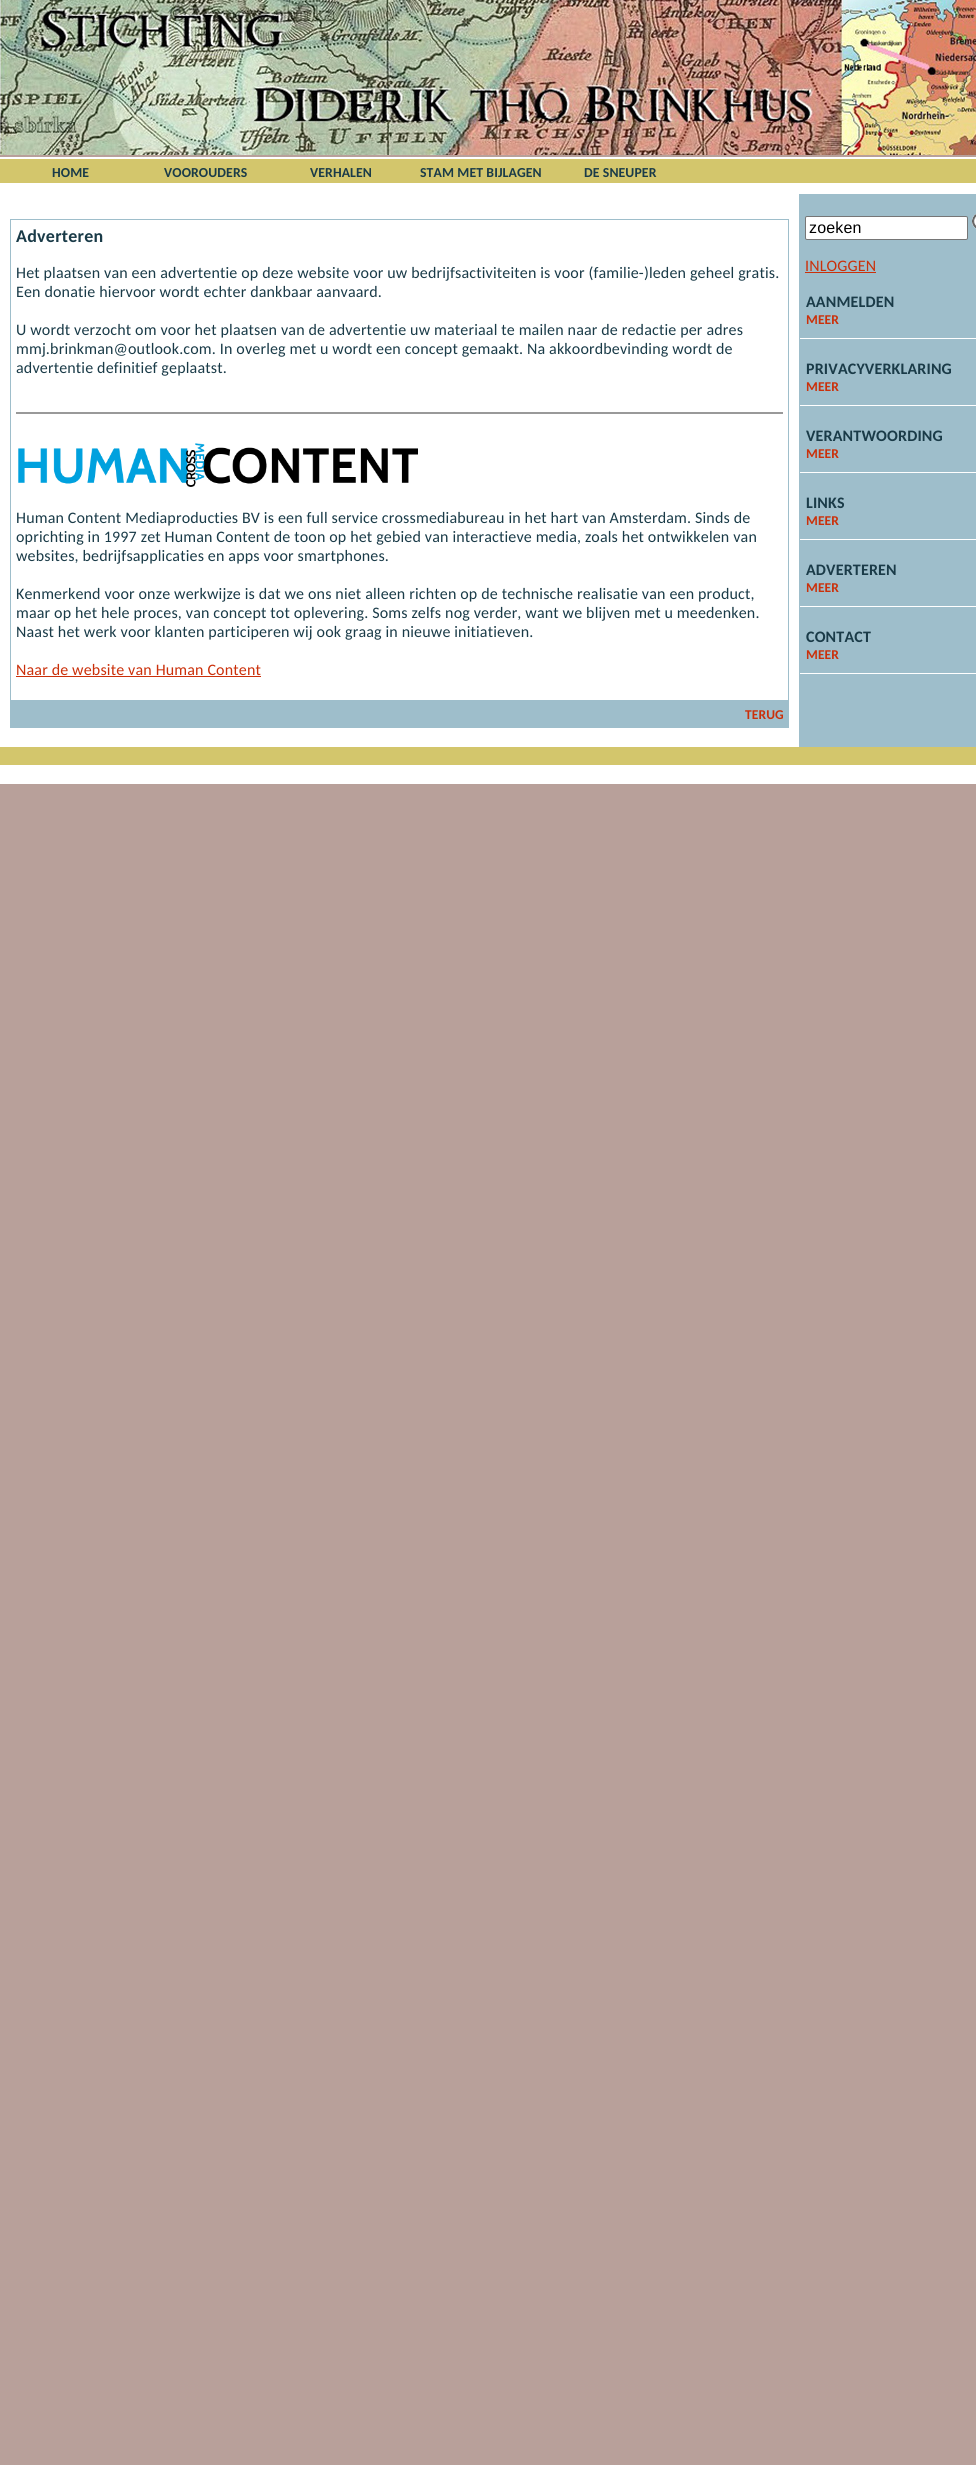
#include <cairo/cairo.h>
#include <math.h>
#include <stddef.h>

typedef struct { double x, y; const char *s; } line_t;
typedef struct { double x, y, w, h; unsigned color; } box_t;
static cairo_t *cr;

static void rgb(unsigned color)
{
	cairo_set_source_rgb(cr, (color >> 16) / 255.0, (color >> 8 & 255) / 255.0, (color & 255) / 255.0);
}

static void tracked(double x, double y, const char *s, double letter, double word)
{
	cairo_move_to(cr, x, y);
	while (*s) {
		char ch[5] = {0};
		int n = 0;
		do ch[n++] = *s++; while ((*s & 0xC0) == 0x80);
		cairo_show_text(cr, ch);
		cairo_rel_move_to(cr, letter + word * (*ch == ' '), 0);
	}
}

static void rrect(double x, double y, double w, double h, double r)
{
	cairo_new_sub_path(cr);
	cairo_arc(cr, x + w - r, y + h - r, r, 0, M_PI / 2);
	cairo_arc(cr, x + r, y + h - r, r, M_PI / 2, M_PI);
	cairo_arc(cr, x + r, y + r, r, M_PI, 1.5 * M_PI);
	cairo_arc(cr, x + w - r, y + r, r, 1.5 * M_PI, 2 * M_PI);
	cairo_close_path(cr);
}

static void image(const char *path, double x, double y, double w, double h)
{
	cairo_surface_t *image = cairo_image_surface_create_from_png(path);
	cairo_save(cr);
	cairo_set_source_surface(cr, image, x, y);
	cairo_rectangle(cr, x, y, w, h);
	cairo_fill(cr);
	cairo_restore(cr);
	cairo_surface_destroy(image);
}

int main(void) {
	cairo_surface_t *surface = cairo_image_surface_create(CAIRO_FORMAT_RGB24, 976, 2465);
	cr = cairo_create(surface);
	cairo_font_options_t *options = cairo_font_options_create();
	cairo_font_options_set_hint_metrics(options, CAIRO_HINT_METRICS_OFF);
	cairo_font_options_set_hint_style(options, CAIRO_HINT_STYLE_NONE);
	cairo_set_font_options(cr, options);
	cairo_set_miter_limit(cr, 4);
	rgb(0xb8a09a);
	cairo_paint(cr);
	rgb(0xffffff);
	cairo_rectangle(cr, 0, 194, 799, 553);
	cairo_fill(cr);
	image("img/1.png", 0, 0, 976, 194);
	rgb(0xd3c66c);
	cairo_rectangle(cr, 0, 159, 976, 24);
	cairo_fill(cr);
	cairo_rectangle(cr, 10.5, 219.5, 778, 481);
	rgb(0x9ebecb);
	cairo_set_line_width(cr, 1);
	cairo_stroke(cr);
	rgb(0x999999);
	cairo_rectangle(cr, 16, 412, 767, 2);
	cairo_fill(cr);
	image("img/2.png", 18, 443, 400, 44);
	{
		static const box_t items[] = {
			{16, 676, 245, 1, 0xcb300a},
			{10, 701, 779, 27, 0x9ebecb},
			{799, 194, 177, 553, 0x9ebecb},
		};
		for (size_t i = 0; i < sizeof items / sizeof *items; i++) {
			rgb(items[i].color);
			cairo_rectangle(cr, items[i].x, items[i].y, items[i].w, items[i].h);
			cairo_fill(cr);
		}
	}
	rgb(0xffffff);
	rrect(805.5, 216.5, 162, 23, 1.5);
	cairo_fill_preserve(cr);
	rgb(0x767676);
	cairo_stroke(cr);
	image("img/3.png", 972, 214, 4, 15);
	{
		static const box_t items[] = {
			{805, 272, 71, 1, 0xcb300a},
			{799, 338, 177, 1, 0xffffff},
			{799, 338, 1, 1, 0x9ebecb},
			{799, 405, 177, 1, 0xffffff},
			{799, 405, 1, 1, 0x9ebecb},
			{799, 472, 177, 1, 0xffffff},
			{799, 472, 1, 1, 0x9ebecb},
			{799, 539, 177, 1, 0xffffff},
			{799, 539, 1, 1, 0x9ebecb},
			{799, 606, 177, 1, 0xffffff},
			{799, 606, 1, 1, 0x9ebecb},
			{799, 673, 177, 1, 0xffffff},
			{799, 673, 1, 1, 0x9ebecb},
			{0, 747, 976, 18, 0xd3c66c},
			{0, 765, 976, 19, 0xffffff},
		};
		for (size_t i = 0; i < sizeof items / sizeof *items; i++) {
			rgb(items[i].color);
			cairo_rectangle(cr, items[i].x, items[i].y, items[i].w, items[i].h);
			cairo_fill(cr);
		}
	}
	cairo_select_font_face(cr, "Carlito", CAIRO_FONT_SLANT_NORMAL, CAIRO_FONT_WEIGHT_BOLD);
	cairo_set_font_size(cr, 13.75);
	rgb(0x1a3b48);
	{
		static const line_t items[] = {
			{52, 177, "HOME"},
			{164, 177, "VOOROUDERS"},
			{310, 177, "VERHALEN"},
			{420, 177, "STAM MET BIJLAGEN"},
			{584, 177, "DE SNEUPER"},
		};
		for (size_t i = 0; i < sizeof items / sizeof *items; i++) {
			tracked(items[i].x, items[i].y, items[i].s, 0.1, 0);
		}
	}
	cairo_set_font_size(cr, 18);
	tracked(16, 242, "Adverteren", 0.25, 0);
	cairo_select_font_face(cr, "Carlito", CAIRO_FONT_SLANT_NORMAL, CAIRO_FONT_WEIGHT_NORMAL);
	cairo_set_font_size(cr, 16);
	{
		static const line_t items[] = {
			{16, 278, "Het plaatsen van een advertentie op deze website voor uw bedrijfsactiviteiten is voor (familie-)leden geheel gratis."},
			{16, 297, "Een donatie hiervoor wordt echter dankbaar aanvaard."},
			{16, 335, "U wordt verzocht om voor het plaatsen van de advertentie uw materiaal te mailen naar de redactie per adres"},
			{16, 354, "mmj.brinkman@outlook.com. In overleg met u wordt een concept gemaakt. Na akkoordbevinding wordt de"},
			{16, 373, "advertentie definitief geplaatst."},
			{16, 523, "Human Content Mediaproducties BV is een full service crossmediabureau in het hart van Amsterdam. Sinds de"},
			{16, 542, "oprichting in 1997 zet Human Content de toon op het gebied van interactieve media, zoals het ontwikkelen van"},
			{16, 561, "websites, bedrijfsapplicaties en apps voor smartphones."},
			{16, 599, "Kenmerkend voor onze werkwijze is dat we ons niet alleen richten op de technische realisatie van een product,"},
			{16, 618, "maar op het hele proces, van concept tot oplevering. Soms zelfs nog verder, want we blijven met u meedenken."},
			{16, 637, "Naast het werk voor klanten participeren wij ook graag in nieuwe initiatieven."},
		};
		for (size_t i = 0; i < sizeof items / sizeof *items; i++) {
			tracked(items[i].x, items[i].y, items[i].s, 0.16, 0);
		}
	}
	rgb(0xcb300a);
	tracked(16, 675, "Naar de website van Human Content", 0.16, 0);
	cairo_select_font_face(cr, "Carlito", CAIRO_FONT_SLANT_NORMAL, CAIRO_FONT_WEIGHT_BOLD);
	cairo_set_font_size(cr, 13.5);
	tracked(745, 719, "TERUG", 0.1, 0);
	cairo_select_font_face(cr, "Liberation Sans", CAIRO_FONT_SLANT_NORMAL, CAIRO_FONT_WEIGHT_NORMAL);
	cairo_set_font_size(cr, 16);
	rgb(0x000000);
	tracked(809, 233, "zoeken", 0.16, 0);
	cairo_select_font_face(cr, "Carlito", CAIRO_FONT_SLANT_NORMAL, CAIRO_FONT_WEIGHT_NORMAL);
	rgb(0xcb300a);
	tracked(805, 271, "INLOGGEN", 0.16, 0);
	cairo_select_font_face(cr, "Carlito", CAIRO_FONT_SLANT_NORMAL, CAIRO_FONT_WEIGHT_BOLD);
	rgb(0x1a3b48);
	tracked(806, 307, "AANMELDEN", 0.16, 0);
	cairo_set_font_size(cr, 13.5);
	rgb(0xcb300a);
	tracked(806, 324, "MEER", 0.1, 0);
	cairo_set_font_size(cr, 16);
	rgb(0x1a3b48);
	tracked(806, 374, "PRIVACYVERKLARING", 0.16, 0);
	cairo_set_font_size(cr, 13.5);
	rgb(0xcb300a);
	tracked(806, 391, "MEER", 0.1, 0);
	cairo_set_font_size(cr, 16);
	rgb(0x1a3b48);
	tracked(806, 441, "VERANTWOORDING", 0.16, 0);
	cairo_set_font_size(cr, 13.5);
	rgb(0xcb300a);
	tracked(806, 458, "MEER", 0.1, 0);
	cairo_set_font_size(cr, 16);
	rgb(0x1a3b48);
	tracked(806, 508, "LINKS", 0.16, 0);
	cairo_set_font_size(cr, 13.5);
	rgb(0xcb300a);
	tracked(806, 525, "MEER", 0.1, 0);
	cairo_set_font_size(cr, 16);
	rgb(0x1a3b48);
	tracked(806, 575, "ADVERTEREN", 0.16, 0);
	cairo_set_font_size(cr, 13.5);
	rgb(0xcb300a);
	tracked(806, 592, "MEER", 0.1, 0);
	cairo_set_font_size(cr, 16);
	rgb(0x1a3b48);
	tracked(806, 642, "CONTACT", 0.16, 0);
	cairo_set_font_size(cr, 13.5);
	rgb(0xcb300a);
	tracked(806, 659, "MEER", 0.1, 0);
	cairo_surface_write_to_png(surface, "page.png");
	cairo_font_options_destroy(options);
	cairo_destroy(cr);
	cairo_surface_destroy(surface);
	return 0;
}
